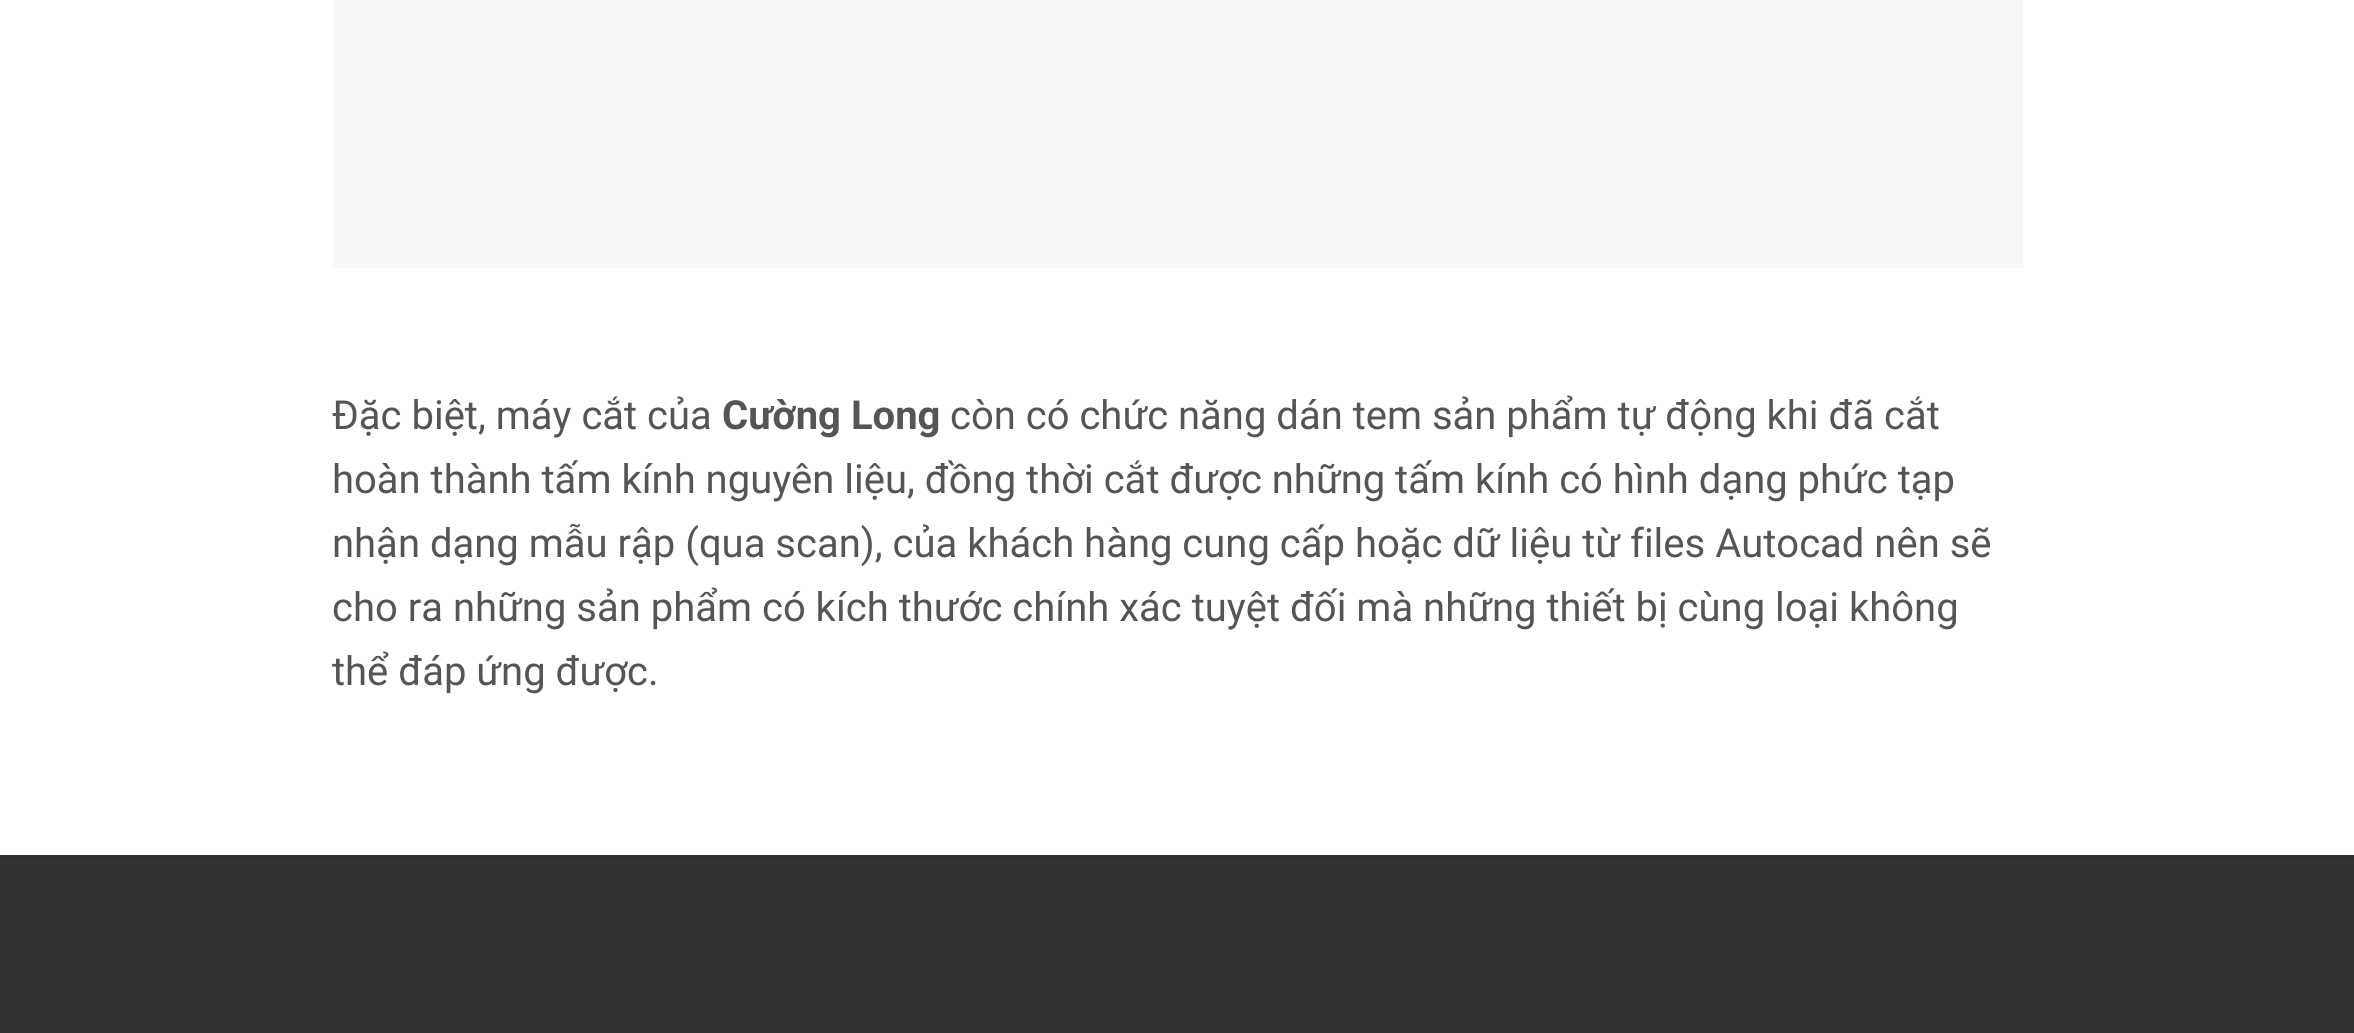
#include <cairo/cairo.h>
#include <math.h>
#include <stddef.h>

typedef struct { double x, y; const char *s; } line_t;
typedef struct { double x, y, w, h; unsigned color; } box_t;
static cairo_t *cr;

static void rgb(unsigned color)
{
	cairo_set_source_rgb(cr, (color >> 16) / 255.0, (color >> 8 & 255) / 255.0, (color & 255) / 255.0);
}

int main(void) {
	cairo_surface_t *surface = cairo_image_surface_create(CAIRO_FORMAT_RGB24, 2354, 1033);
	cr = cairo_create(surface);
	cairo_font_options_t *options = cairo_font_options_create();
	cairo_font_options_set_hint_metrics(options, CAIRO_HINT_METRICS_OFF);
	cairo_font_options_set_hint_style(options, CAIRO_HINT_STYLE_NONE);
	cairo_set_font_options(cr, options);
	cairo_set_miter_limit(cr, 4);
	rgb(0xffffff);
	cairo_paint(cr);
	{
		static const box_t items[] = {
			{333, 0, 1690, 268, 0xf8f8f8},
			{0, 858, 2354, 175, 0x333333},
			{0, 855, 2354, 3, 0x303030},
		};
		for (size_t i = 0; i < sizeof items / sizeof *items; i++) {
			rgb(items[i].color);
			cairo_rectangle(cr, items[i].x, items[i].y, items[i].w, items[i].h);
			cairo_fill(cr);
		}
	}
	cairo_select_font_face(cr, "Roboto", CAIRO_FONT_SLANT_NORMAL, CAIRO_FONT_WEIGHT_NORMAL);
	cairo_set_font_size(cr, 40);
	rgb(0x555555);
	cairo_move_to(cr, 332, 429);
	cairo_show_text(cr, "Đặc biệt, máy cắt của");
	cairo_select_font_face(cr, "Roboto", CAIRO_FONT_SLANT_NORMAL, CAIRO_FONT_WEIGHT_BOLD);
	cairo_move_to(cr, 722, 429);
	cairo_show_text(cr, "Cường Long");
	cairo_select_font_face(cr, "Roboto", CAIRO_FONT_SLANT_NORMAL, CAIRO_FONT_WEIGHT_NORMAL);
	{
		static const line_t items[] = {
			{950, 429, "còn có chức năng dán tem sản phẩm tự động khi đã cắt"},
			{332, 493, "hoàn thành tấm kính nguyên liệu, đồng thời cắt được những tấm kính có hình dạng phức tạp"},
			{332, 557, "nhận dạng mẫu rập (qua scan), của khách hàng cung cấp hoặc dữ liệu từ files Autocad nên sẽ"},
			{332, 621, "cho ra những sản phẩm có kích thước chính xác tuyệt đối mà những thiết bị cùng loại không"},
			{332, 685, "thể đáp ứng được."},
		};
		for (size_t i = 0; i < sizeof items / sizeof *items; i++) {
			cairo_move_to(cr, items[i].x, items[i].y);
			cairo_show_text(cr, items[i].s);
		}
	}
	cairo_surface_write_to_png(surface, "page.png");
	cairo_font_options_destroy(options);
	cairo_destroy(cr);
	cairo_surface_destroy(surface);
	return 0;
}
